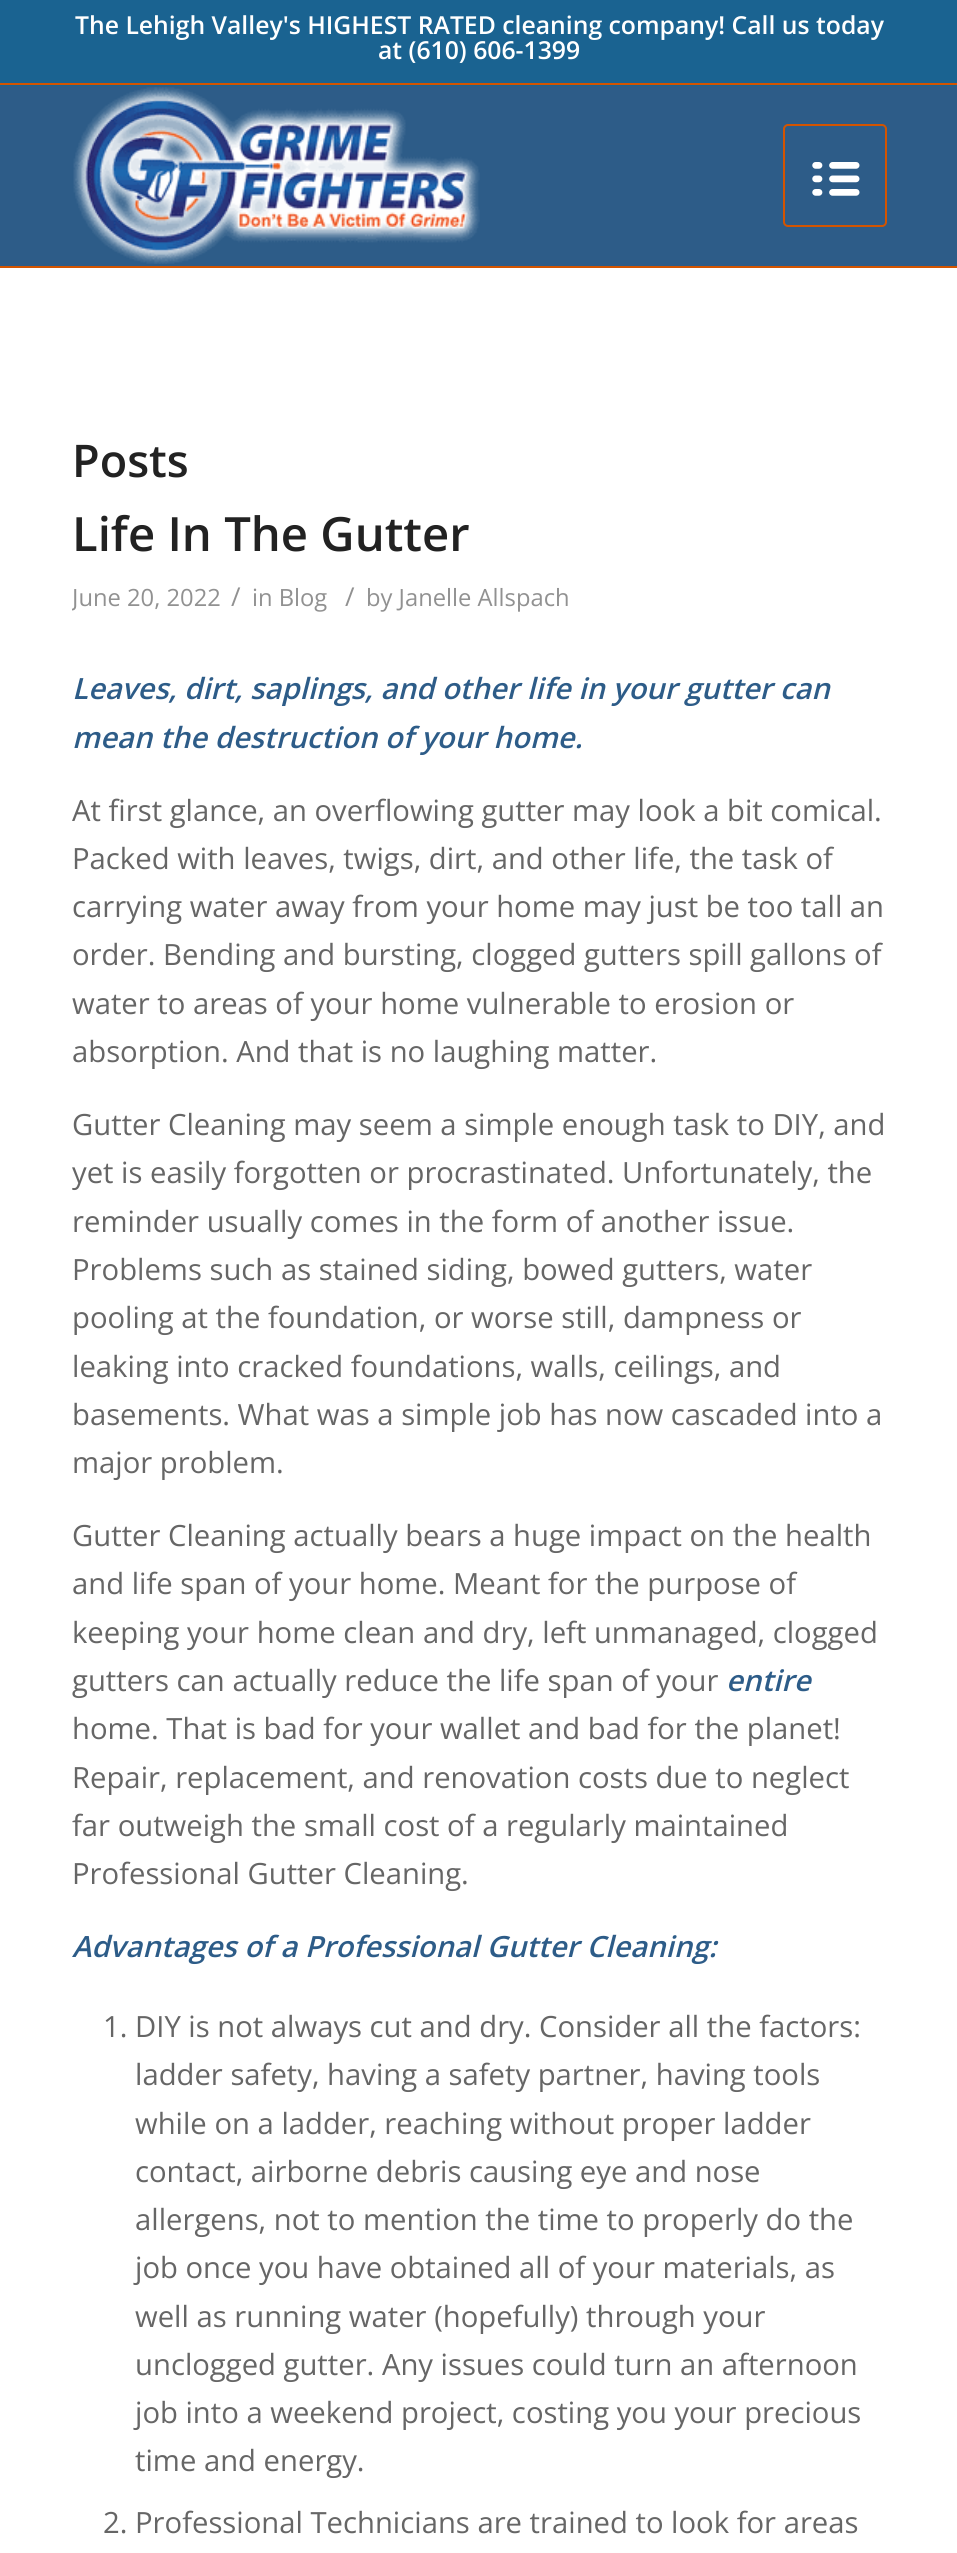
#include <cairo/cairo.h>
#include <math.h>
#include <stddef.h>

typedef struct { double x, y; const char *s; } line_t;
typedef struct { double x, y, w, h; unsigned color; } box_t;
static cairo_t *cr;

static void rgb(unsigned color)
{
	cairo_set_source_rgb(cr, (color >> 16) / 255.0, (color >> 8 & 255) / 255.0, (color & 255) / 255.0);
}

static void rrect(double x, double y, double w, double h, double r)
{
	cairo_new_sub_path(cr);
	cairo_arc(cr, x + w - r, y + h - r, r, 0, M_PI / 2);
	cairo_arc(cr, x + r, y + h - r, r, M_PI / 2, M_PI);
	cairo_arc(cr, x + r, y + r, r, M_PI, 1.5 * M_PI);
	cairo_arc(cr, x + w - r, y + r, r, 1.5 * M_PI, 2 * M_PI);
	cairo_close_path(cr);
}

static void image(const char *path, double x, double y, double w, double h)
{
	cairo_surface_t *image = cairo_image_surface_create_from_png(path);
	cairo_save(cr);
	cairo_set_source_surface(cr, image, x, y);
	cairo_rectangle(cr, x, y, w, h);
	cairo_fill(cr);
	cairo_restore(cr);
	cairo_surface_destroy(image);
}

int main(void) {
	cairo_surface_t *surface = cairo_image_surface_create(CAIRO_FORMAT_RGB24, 957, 2553);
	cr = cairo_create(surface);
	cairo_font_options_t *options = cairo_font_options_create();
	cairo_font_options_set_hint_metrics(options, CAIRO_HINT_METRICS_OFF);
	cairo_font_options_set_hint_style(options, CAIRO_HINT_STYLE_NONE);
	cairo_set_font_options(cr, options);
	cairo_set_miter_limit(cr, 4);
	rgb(0xffffff);
	cairo_paint(cr);
	{
		static const box_t items[] = {
			{0, 0, 957, 86, 0x1a6391},
			{0, 83, 957, 2, 0xd35400},
			{0, 86, 957, 180, 0x2d5c88},
			{0, 266, 957, 2, 0xd35400},
		};
		for (size_t i = 0; i < sizeof items / sizeof *items; i++) {
			rgb(items[i].color);
			cairo_rectangle(cr, items[i].x, items[i].y, items[i].w, items[i].h);
			cairo_fill(cr);
		}
	}
	image("img/1.png", 73, 87, 407, 177);
	rrect(784, 125, 102, 101, 4);
	cairo_stroke(cr);
	image("img/2.png", 812, 162, 48, 34);
	cairo_select_font_face(cr, "Open Sans SemiBold", CAIRO_FONT_SLANT_NORMAL, CAIRO_FONT_WEIGHT_NORMAL);
	cairo_set_font_size(cr, 24.75);
	rgb(0xffffff);
	cairo_move_to(cr, 75, 34);
	cairo_show_text(cr, "The Lehigh Valley's HIGHEST RATED cleaning company! Call us today");
	cairo_move_to(cr, 378, 59);
	cairo_show_text(cr, "at (610) 606-1399");
	cairo_set_font_size(cr, 45);
	rgb(0x222222);
	cairo_move_to(cr, 72, 477);
	cairo_show_text(cr, "Posts");
	cairo_set_font_size(cr, 47.25);
	cairo_move_to(cr, 72, 551);
	cairo_show_text(cr, "Life In The Gutter");
	cairo_save(cr);
	cairo_rectangle(cr, 72, 504, 815, 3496);
	cairo_clip(cr);
	cairo_select_font_face(cr, "Open Sans", CAIRO_FONT_SLANT_NORMAL, CAIRO_FONT_WEIGHT_NORMAL);
	cairo_set_font_size(cr, 23.75);
	rgb(0x919191);
	cairo_move_to(cr, 72, 606);
	cairo_show_text(cr, "June 20, 2022");
	cairo_restore(cr);
	cairo_select_font_face(cr, "Open Sans", CAIRO_FONT_SLANT_NORMAL, CAIRO_FONT_WEIGHT_NORMAL);
	cairo_set_font_size(cr, 26);
	rgb(0x919191);
	cairo_move_to(cr, 231, 606);
	cairo_show_text(cr, "/");
	cairo_set_font_size(cr, 23.75);
	cairo_move_to(cr, 252, 606);
	cairo_show_text(cr, "in Blog");
	cairo_set_font_size(cr, 26);
	cairo_move_to(cr, 345, 606);
	cairo_show_text(cr, "/");
	cairo_set_font_size(cr, 23.75);
	cairo_move_to(cr, 366, 606);
	cairo_show_text(cr, "by Janelle Allspach");
	cairo_select_font_face(cr, "Open Sans SemiBold", CAIRO_FONT_SLANT_ITALIC, CAIRO_FONT_WEIGHT_NORMAL);
	cairo_set_font_size(cr, 29.25);
	rgb(0x2d5c88);
	cairo_move_to(cr, 72, 699);
	cairo_show_text(cr, "Leaves, dirt, saplings, and other life in your gutter can");
	cairo_move_to(cr, 72, 748);
	cairo_show_text(cr, "mean the destruction of your home.");
	cairo_select_font_face(cr, "Open Sans", CAIRO_FONT_SLANT_NORMAL, CAIRO_FONT_WEIGHT_NORMAL);
	rgb(0x666666);
	{
		static const line_t items[] = {
			{72, 821, "At first glance, an overflowing gutter may look a bit comical."},
			{72, 869, "Packed with leaves, twigs, dirt, and other life, the task of"},
			{72, 917, "carrying water away from your home may just be too tall an"},
			{72, 965, "order. Bending and bursting, clogged gutters spill gallons of"},
			{72, 1014, "water to areas of your home vulnerable to erosion or"},
			{72, 1062, "absorption. And that is no laughing matter."},
			{72, 1135, "Gutter Cleaning may seem a simple enough task to DIY, and"},
			{72, 1183, "yet is easily forgotten or procrastinated. Unfortunately, the"},
			{72, 1232, "reminder usually comes in the form of another issue."},
			{72, 1280, "Problems such as stained siding, bowed gutters, water"},
			{72, 1328, "pooling at the foundation, or worse still, dampness or"},
			{72, 1377, "leaking into cracked foundations, walls, ceilings, and"},
			{72, 1425, "basements. What was a simple job has now cascaded into a"},
			{72, 1473, "major problem."},
			{72, 1546, "Gutter Cleaning actually bears a huge impact on the health"},
			{72, 1594, "and life span of your home. Meant for the purpose of"},
			{72, 1643, "keeping your home clean and dry, left unmanaged, clogged"},
			{72, 1691, "gutters can actually reduce the life span of your"},
		};
		for (size_t i = 0; i < sizeof items / sizeof *items; i++) {
			cairo_move_to(cr, items[i].x, items[i].y);
			cairo_show_text(cr, items[i].s);
		}
	}
	cairo_select_font_face(cr, "Open Sans SemiBold", CAIRO_FONT_SLANT_ITALIC, CAIRO_FONT_WEIGHT_NORMAL);
	rgb(0x2d5c88);
	cairo_move_to(cr, 726, 1691);
	cairo_show_text(cr, "entire");
	cairo_select_font_face(cr, "Open Sans", CAIRO_FONT_SLANT_NORMAL, CAIRO_FONT_WEIGHT_NORMAL);
	rgb(0x666666);
	{
		static const line_t items[] = {
			{72, 1739, "home. That is bad for your wallet and bad for the planet!"},
			{72, 1788, "Repair, replacement, and renovation costs due to neglect"},
			{72, 1836, "far outweigh the small cost of a regularly maintained"},
			{72, 1884, "Professional Gutter Cleaning."},
		};
		for (size_t i = 0; i < sizeof items / sizeof *items; i++) {
			cairo_move_to(cr, items[i].x, items[i].y);
			cairo_show_text(cr, items[i].s);
		}
	}
	cairo_select_font_face(cr, "Open Sans SemiBold", CAIRO_FONT_SLANT_ITALIC, CAIRO_FONT_WEIGHT_NORMAL);
	rgb(0x2d5c88);
	cairo_move_to(cr, 72, 1957);
	cairo_show_text(cr, "Advantages of a Professional Gutter Cleaning:");
	cairo_select_font_face(cr, "Open Sans", CAIRO_FONT_SLANT_NORMAL, CAIRO_FONT_WEIGHT_NORMAL);
	rgb(0x666666);
	{
		static const line_t items[] = {
			{103, 2037, "1. DIY is not always cut and dry. Consider all the factors:"},
			{135, 2085, "ladder safety, having a safety partner, having tools"},
			{135, 2134, "while on a ladder, reaching without proper ladder"},
			{135, 2182, "contact, airborne debris causing eye and nose"},
			{135, 2230, "allergens, not to mention the time to properly do the"},
			{135, 2278, "job once you have obtained all of your materials, as"},
			{135, 2327, "well as running water (hopefully) through your"},
			{135, 2375, "unclogged gutter. Any issues could turn an afternoon"},
			{135, 2423, "job into a weekend project, costing you your precious"},
			{135, 2471, "time and energy."},
			{103, 2533, "2. Professional Technicians are trained to look for areas"},
		};
		for (size_t i = 0; i < sizeof items / sizeof *items; i++) {
			cairo_move_to(cr, items[i].x, items[i].y);
			cairo_show_text(cr, items[i].s);
		}
	}
	cairo_surface_write_to_png(surface, "page.png");
	cairo_font_options_destroy(options);
	cairo_destroy(cr);
	cairo_surface_destroy(surface);
	return 0;
}
